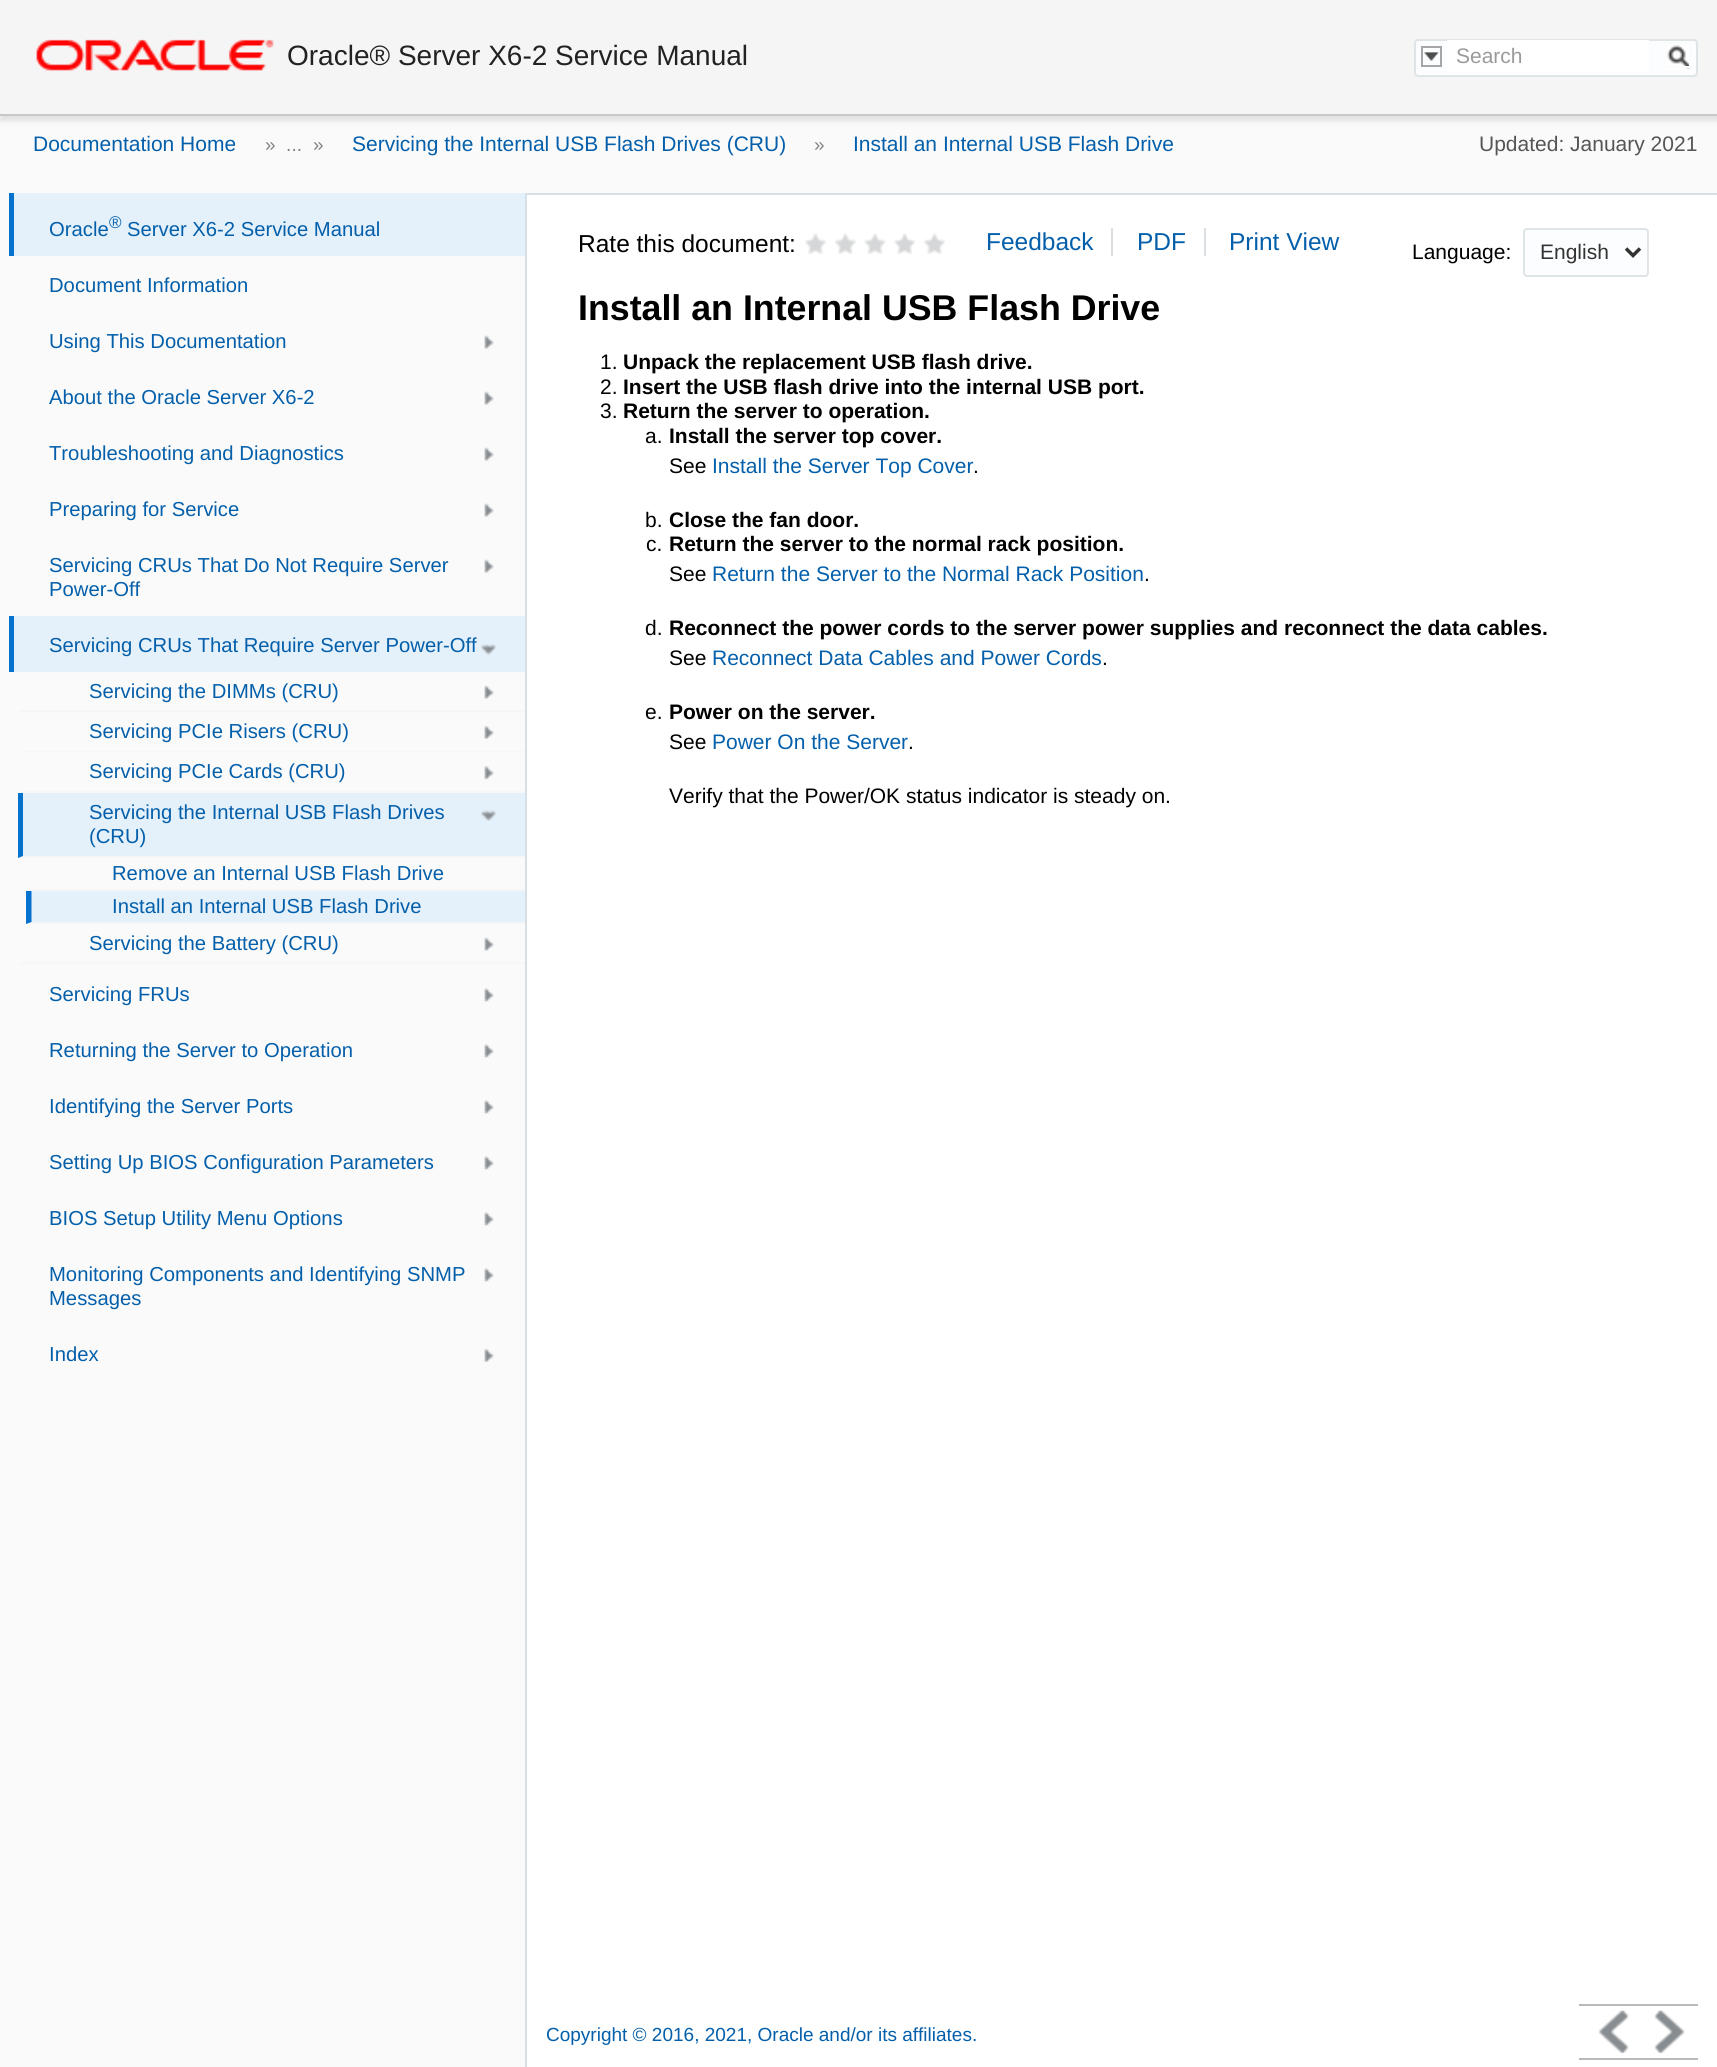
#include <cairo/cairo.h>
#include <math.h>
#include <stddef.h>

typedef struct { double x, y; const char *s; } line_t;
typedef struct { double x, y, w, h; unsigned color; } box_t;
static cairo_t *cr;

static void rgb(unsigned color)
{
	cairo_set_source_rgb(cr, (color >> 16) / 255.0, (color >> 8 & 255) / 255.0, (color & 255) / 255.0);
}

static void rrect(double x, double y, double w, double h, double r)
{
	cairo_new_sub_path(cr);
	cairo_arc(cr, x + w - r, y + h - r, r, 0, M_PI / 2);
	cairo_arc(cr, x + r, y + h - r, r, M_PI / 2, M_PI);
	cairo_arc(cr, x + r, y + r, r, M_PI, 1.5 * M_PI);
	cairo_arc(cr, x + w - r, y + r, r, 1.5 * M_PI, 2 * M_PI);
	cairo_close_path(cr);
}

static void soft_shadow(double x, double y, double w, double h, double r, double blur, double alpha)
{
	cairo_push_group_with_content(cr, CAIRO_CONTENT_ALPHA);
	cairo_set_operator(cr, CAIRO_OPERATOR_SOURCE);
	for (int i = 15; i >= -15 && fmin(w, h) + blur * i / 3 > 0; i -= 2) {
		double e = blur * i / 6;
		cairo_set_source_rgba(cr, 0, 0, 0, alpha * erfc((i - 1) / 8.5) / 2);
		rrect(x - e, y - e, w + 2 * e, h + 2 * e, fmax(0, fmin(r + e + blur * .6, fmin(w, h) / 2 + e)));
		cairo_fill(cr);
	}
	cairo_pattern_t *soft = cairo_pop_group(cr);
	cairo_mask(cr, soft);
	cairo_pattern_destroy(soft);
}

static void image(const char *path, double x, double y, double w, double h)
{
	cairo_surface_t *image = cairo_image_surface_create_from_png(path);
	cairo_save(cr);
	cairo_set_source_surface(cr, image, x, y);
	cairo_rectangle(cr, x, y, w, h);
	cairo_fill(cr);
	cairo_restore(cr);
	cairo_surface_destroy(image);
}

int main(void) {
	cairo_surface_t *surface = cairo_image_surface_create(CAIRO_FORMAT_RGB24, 1717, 2067);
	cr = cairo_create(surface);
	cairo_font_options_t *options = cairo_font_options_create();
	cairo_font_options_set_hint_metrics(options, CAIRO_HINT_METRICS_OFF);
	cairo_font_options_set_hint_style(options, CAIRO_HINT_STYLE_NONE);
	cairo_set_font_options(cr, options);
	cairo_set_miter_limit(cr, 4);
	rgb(0xffffff);
	cairo_paint(cr);
	rgb(0xfafafa);
	cairo_rectangle(cr, 0, 116, 1717, 77);
	cairo_fill(cr);
	rgb(0x000000);
	soft_shadow(0, 5, 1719, 116, 0, 2.5, 0.1);
	rgb(0xf5f5f5);
	cairo_rectangle(cr, 0, 0, 1717, 114);
	cairo_fill(cr);
	rgb(0xc8c8c8);
	cairo_rectangle(cr, 0, 114, 1717, 2);
	cairo_fill(cr);
	image("img/1.png", 36, 39, 238, 32);
	rgb(0xfcfdfe);
	rrect(1415, 40, 282, 36, 3);
	cairo_fill_preserve(cr);
	rgb(0xdfe4e7);
	cairo_stroke(cr);
	image("img/2.png", 1424, 52, 15, 10);
	cairo_rectangle(cr, 1422, 47, 19, 19);
	rgb(0xa6a6a6);
	cairo_stroke(cr);
	rgb(0xffffff);
	cairo_rectangle(cr, 1447, 40, 202, 32);
	cairo_fill(cr);
	image("img/3.png", 1667, 45, 24, 24);
	cairo_rectangle(cr, 1665, 43, 25, 24);
	rgb(0xfcfcfc);
	cairo_stroke(cr);
	{
		static const box_t items[] = {
			{527, 193, 1190, 2, 0xd6dfe6},
			{0, 193, 525, 1874, 0xfafafa},
			{525, 193, 2, 1874, 0xd6dfe6},
			{14, 193, 511, 63, 0xe4f0fa},
			{9, 193, 5, 63, 0x0572ce},
		};
		for (size_t i = 0; i < sizeof items / sizeof *items; i++) {
			rgb(items[i].color);
			cairo_rectangle(cr, items[i].x, items[i].y, items[i].w, items[i].h);
			cairo_fill(cr);
		}
	}
	image("img/4.png", 484, 335, 10, 14);
	image("img/4.png", 484, 391, 10, 14);
	image("img/5.png", 484, 447, 10, 14);
	image("img/4.png", 484, 503, 10, 14);
	image("img/4.png", 484, 559, 10, 14);
	rgb(0xe4f0fa);
	cairo_rectangle(cr, 14, 616, 511, 56);
	cairo_fill(cr);
	image("img/6.png", 481, 644, 15, 11);
	rgb(0x0572ce);
	cairo_rectangle(cr, 9, 616, 5, 56);
	cairo_fill(cr);
	image("img/4.png", 484, 685, 10, 14);
	rgb(0xf6f6f6);
	cairo_new_path(cr);
	cairo_move_to(cr, 525, 712);
	cairo_line_to(cr, 18, 712);
	cairo_line_to(cr, 23, 710);
	cairo_line_to(cr, 525, 710);
	cairo_close_path(cr);
	cairo_fill(cr);
	image("img/7.png", 484, 726, 10, 13);
	cairo_new_path(cr);
	cairo_move_to(cr, 525, 752);
	cairo_line_to(cr, 18, 752);
	cairo_line_to(cr, 23, 751);
	cairo_line_to(cr, 525, 751);
	cairo_close_path(cr);
	cairo_fill(cr);
	image("img/8.png", 484, 766, 10, 14);
	cairo_new_path(cr);
	cairo_move_to(cr, 525, 793);
	cairo_line_to(cr, 18, 793);
	cairo_line_to(cr, 23, 791);
	cairo_line_to(cr, 525, 791);
	cairo_close_path(cr);
	cairo_fill(cr);
	rgb(0xe4f0fa);
	cairo_rectangle(cr, 18, 793, 507, 65);
	cairo_fill(cr);
	image("img/9.png", 481, 810, 15, 11);
	rgb(0xf6f6f6);
	cairo_new_path(cr);
	cairo_move_to(cr, 525, 858);
	cairo_line_to(cr, 18, 858);
	cairo_line_to(cr, 23, 856);
	cairo_line_to(cr, 525, 856);
	cairo_close_path(cr);
	cairo_fill(cr);
	rgb(0x0572ce);
	cairo_new_path(cr);
	cairo_move_to(cr, 18, 858);
	cairo_line_to(cr, 18, 793);
	cairo_line_to(cr, 23, 793);
	cairo_line_to(cr, 23, 856);
	cairo_close_path(cr);
	cairo_fill(cr);
	rgb(0xf6f6f6);
	cairo_new_path(cr);
	cairo_move_to(cr, 525, 891);
	cairo_line_to(cr, 26, 891);
	cairo_line_to(cr, 32, 889);
	cairo_line_to(cr, 525, 889);
	cairo_close_path(cr);
	cairo_fill(cr);
	rgb(0xe4f0fa);
	cairo_rectangle(cr, 26, 891, 499, 33);
	cairo_fill(cr);
	rgb(0xf6f6f6);
	cairo_new_path(cr);
	cairo_move_to(cr, 525, 924);
	cairo_line_to(cr, 26, 924);
	cairo_line_to(cr, 32, 922);
	cairo_line_to(cr, 525, 922);
	cairo_close_path(cr);
	cairo_fill(cr);
	rgb(0x0572ce);
	cairo_new_path(cr);
	cairo_move_to(cr, 26, 924);
	cairo_line_to(cr, 26, 891);
	cairo_line_to(cr, 31.5, 891);
	cairo_line_to(cr, 31.5, 922);
	cairo_close_path(cr);
	cairo_fill(cr);
	image("img/4.png", 484, 937, 10, 14);
	rgb(0xf6f6f6);
	cairo_new_path(cr);
	cairo_move_to(cr, 525, 964);
	cairo_line_to(cr, 18, 964);
	cairo_line_to(cr, 23, 962);
	cairo_line_to(cr, 525, 962);
	cairo_close_path(cr);
	cairo_fill(cr);
	image("img/10.png", 484, 988, 10, 14);
	image("img/10.png", 484, 1044, 10, 14);
	image("img/10.png", 484, 1100, 10, 14);
	image("img/10.png", 484, 1156, 10, 14);
	image("img/10.png", 484, 1212, 10, 14);
	image("img/10.png", 484, 1268, 10, 14);
	image("img/11.png", 484, 1349, 10, 13);
	image("img/12.png", 805, 233, 21, 21);
	image("img/13.png", 835, 233, 21, 21);
	image("img/14.png", 864, 233, 22, 21);
	image("img/15.png", 894, 233, 21, 21);
	image("img/12.png", 924, 233, 21, 21);
	rgb(0xd9dfe3);
	cairo_rectangle(cr, 1111, 228, 2, 28);
	cairo_fill(cr);
	cairo_rectangle(cr, 1204, 228, 2, 28);
	cairo_fill(cr);
	rgb(0xfcfdfe);
	rrect(1524, 229, 124, 47, 3);
	cairo_fill_preserve(cr);
	rgb(0xdfe4e7);
	cairo_stroke(cr);
	cairo_new_path(cr);
	cairo_move_to(cr, 1626, 248.5);
	cairo_line_to(cr, 1633, 255.5);
	cairo_line_to(cr, 1640, 248.5);
	rgb(0x333333);
	cairo_set_line_width(cr, 3.5);
	cairo_stroke(cr);
	rgb(0xb9b9b9);
	cairo_rectangle(cr, 1579, 2004, 119, 2);
	cairo_fill(cr);
	cairo_rectangle(cr, 1579, 2058, 119, 2);
	cairo_fill(cr);
	image("img/16.png", 1598, 2010, 31, 43);
	image("img/17.png", 1654, 2010, 31, 43);
	cairo_select_font_face(cr, "Liberation Sans", CAIRO_FONT_SLANT_NORMAL, CAIRO_FONT_WEIGHT_NORMAL);
	cairo_set_font_size(cr, 28);
	rgb(0x222222);
	cairo_move_to(cr, 287, 65);
	cairo_show_text(cr, "Oracle® Server X6-2 Service Manual");
	cairo_set_font_size(cr, 21);
	rgb(0x9a9a9a);
	cairo_move_to(cr, 1456, 63);
	cairo_show_text(cr, "Search");
	rgb(0x045fab);
	cairo_move_to(cr, 33, 151);
	cairo_show_text(cr, "Documentation Home");
	cairo_set_font_size(cr, 19);
	rgb(0x848282);
	cairo_move_to(cr, 265, 151);
	cairo_show_text(cr, "»  ...");
	cairo_move_to(cr, 313, 151);
	cairo_show_text(cr, "»");
	cairo_set_font_size(cr, 21);
	rgb(0x045fab);
	cairo_move_to(cr, 352, 151);
	cairo_show_text(cr, "Servicing the Internal USB Flash Drives (CRU)");
	cairo_set_font_size(cr, 19);
	rgb(0x848282);
	cairo_move_to(cr, 814, 151);
	cairo_show_text(cr, "»");
	cairo_set_font_size(cr, 21);
	rgb(0x045fab);
	cairo_move_to(cr, 853, 151);
	cairo_show_text(cr, "Install an Internal USB Flash Drive");
	rgb(0x555555);
	cairo_move_to(cr, 1479, 151);
	cairo_show_text(cr, "Updated: January 2021");
	cairo_set_font_size(cr, 20.25);
	rgb(0x045fab);
	cairo_move_to(cr, 49, 236);
	cairo_show_text(cr, "Oracle");
	cairo_set_font_size(cr, 17);
	cairo_move_to(cr, 109, 228);
	cairo_show_text(cr, "®");
	cairo_set_font_size(cr, 20.25);
	{
		static const line_t items[] = {
			{127, 236, "Server X6-2 Service Manual"},
			{49, 292, "Document Information"},
			{49, 348, "Using This Documentation"},
			{49, 404, "About the Oracle Server X6-2"},
			{49, 460, "Troubleshooting and Diagnostics"},
			{49, 516, "Preparing for Service"},
			{49, 572, "Servicing CRUs That Do Not Require Server"},
			{49, 596, "Power-Off"},
			{49, 652, "Servicing CRUs That Require Server Power-Off"},
			{89, 698, "Servicing the DIMMs (CRU)"},
			{89, 738, "Servicing PCIe Risers (CRU)"},
			{89, 778, "Servicing PCIe Cards (CRU)"},
			{89, 819, "Servicing the Internal USB Flash Drives"},
			{89, 843, "(CRU)"},
			{112, 880, "Remove an Internal USB Flash Drive"},
			{112, 913, "Install an Internal USB Flash Drive"},
			{89, 950, "Servicing the Battery (CRU)"},
			{49, 1001, "Servicing FRUs"},
			{49, 1057, "Returning the Server to Operation"},
			{49, 1113, "Identifying the Server Ports"},
			{49, 1169, "Setting Up BIOS Configuration Parameters"},
			{49, 1225, "BIOS Setup Utility Menu Options"},
			{49, 1281, "Monitoring Components and Identifying SNMP"},
			{49, 1305, "Messages"},
			{49, 1361, "Index"},
		};
		for (size_t i = 0; i < sizeof items / sizeof *items; i++) {
			cairo_move_to(cr, items[i].x, items[i].y);
			cairo_show_text(cr, items[i].s);
		}
	}
	cairo_set_font_size(cr, 24.5);
	rgb(0x000000);
	cairo_move_to(cr, 578, 252);
	cairo_show_text(cr, "Rate this document:");
	rgb(0x045fab);
	{
		static const line_t items[] = {
			{986, 250, "Feedback"},
			{1137, 250, "PDF"},
			{1229, 250, "Print View"},
		};
		for (size_t i = 0; i < sizeof items / sizeof *items; i++) {
			cairo_move_to(cr, items[i].x, items[i].y);
			cairo_show_text(cr, items[i].s);
		}
	}
	cairo_set_font_size(cr, 21);
	rgb(0x000000);
	cairo_move_to(cr, 1412, 259);
	cairo_show_text(cr, "Language:");
	rgb(0x333333);
	cairo_move_to(cr, 1540, 259);
	cairo_show_text(cr, "English");
	cairo_select_font_face(cr, "Liberation Sans", CAIRO_FONT_SLANT_NORMAL, CAIRO_FONT_WEIGHT_BOLD);
	cairo_set_font_size(cr, 35.75);
	rgb(0x000000);
	cairo_move_to(cr, 578, 320);
	cairo_show_text(cr, "Install an Internal USB Flash Drive");
	cairo_select_font_face(cr, "Liberation Sans", CAIRO_FONT_SLANT_NORMAL, CAIRO_FONT_WEIGHT_NORMAL);
	cairo_set_font_size(cr, 21);
	cairo_move_to(cr, 600, 369);
	cairo_show_text(cr, "1.");
	cairo_select_font_face(cr, "Liberation Sans", CAIRO_FONT_SLANT_NORMAL, CAIRO_FONT_WEIGHT_BOLD);
	cairo_move_to(cr, 623, 369);
	cairo_show_text(cr, "Unpack the replacement USB flash drive.");
	cairo_select_font_face(cr, "Liberation Sans", CAIRO_FONT_SLANT_NORMAL, CAIRO_FONT_WEIGHT_NORMAL);
	cairo_move_to(cr, 600, 394);
	cairo_show_text(cr, "2.");
	cairo_select_font_face(cr, "Liberation Sans", CAIRO_FONT_SLANT_NORMAL, CAIRO_FONT_WEIGHT_BOLD);
	cairo_move_to(cr, 623, 394);
	cairo_show_text(cr, "Insert the USB flash drive into the internal USB port.");
	cairo_select_font_face(cr, "Liberation Sans", CAIRO_FONT_SLANT_NORMAL, CAIRO_FONT_WEIGHT_NORMAL);
	cairo_move_to(cr, 600, 418);
	cairo_show_text(cr, "3.");
	cairo_select_font_face(cr, "Liberation Sans", CAIRO_FONT_SLANT_NORMAL, CAIRO_FONT_WEIGHT_BOLD);
	cairo_move_to(cr, 623, 418);
	cairo_show_text(cr, "Return the server to operation.");
	cairo_select_font_face(cr, "Liberation Sans", CAIRO_FONT_SLANT_NORMAL, CAIRO_FONT_WEIGHT_NORMAL);
	cairo_move_to(cr, 645, 443);
	cairo_show_text(cr, "a.");
	cairo_select_font_face(cr, "Liberation Sans", CAIRO_FONT_SLANT_NORMAL, CAIRO_FONT_WEIGHT_BOLD);
	cairo_move_to(cr, 669, 443);
	cairo_show_text(cr, "Install the server top cover.");
	cairo_select_font_face(cr, "Liberation Sans", CAIRO_FONT_SLANT_NORMAL, CAIRO_FONT_WEIGHT_NORMAL);
	cairo_move_to(cr, 669, 473);
	cairo_show_text(cr, "See");
	rgb(0x045fab);
	cairo_move_to(cr, 712, 473);
	cairo_show_text(cr, "Install the Server Top Cover");
	rgb(0x000000);
	cairo_move_to(cr, 973, 473);
	cairo_show_text(cr, ".");
	cairo_move_to(cr, 645, 527);
	cairo_show_text(cr, "b.");
	cairo_select_font_face(cr, "Liberation Sans", CAIRO_FONT_SLANT_NORMAL, CAIRO_FONT_WEIGHT_BOLD);
	cairo_move_to(cr, 669, 527);
	cairo_show_text(cr, "Close the fan door.");
	cairo_select_font_face(cr, "Liberation Sans", CAIRO_FONT_SLANT_NORMAL, CAIRO_FONT_WEIGHT_NORMAL);
	cairo_move_to(cr, 646, 551);
	cairo_show_text(cr, "c.");
	cairo_select_font_face(cr, "Liberation Sans", CAIRO_FONT_SLANT_NORMAL, CAIRO_FONT_WEIGHT_BOLD);
	cairo_move_to(cr, 669, 551);
	cairo_show_text(cr, "Return the server to the normal rack position.");
	cairo_select_font_face(cr, "Liberation Sans", CAIRO_FONT_SLANT_NORMAL, CAIRO_FONT_WEIGHT_NORMAL);
	cairo_move_to(cr, 669, 581);
	cairo_show_text(cr, "See");
	rgb(0x045fab);
	cairo_move_to(cr, 712, 581);
	cairo_show_text(cr, "Return the Server to the Normal Rack Position");
	rgb(0x000000);
	cairo_move_to(cr, 1144, 581);
	cairo_show_text(cr, ".");
	cairo_move_to(cr, 645, 635);
	cairo_show_text(cr, "d.");
	cairo_select_font_face(cr, "Liberation Sans", CAIRO_FONT_SLANT_NORMAL, CAIRO_FONT_WEIGHT_BOLD);
	cairo_move_to(cr, 669, 635);
	cairo_show_text(cr, "Reconnect the power cords to the server power supplies and reconnect the data cables.");
	cairo_select_font_face(cr, "Liberation Sans", CAIRO_FONT_SLANT_NORMAL, CAIRO_FONT_WEIGHT_NORMAL);
	cairo_move_to(cr, 669, 665);
	cairo_show_text(cr, "See");
	rgb(0x045fab);
	cairo_move_to(cr, 712, 665);
	cairo_show_text(cr, "Reconnect Data Cables and Power Cords");
	rgb(0x000000);
	cairo_move_to(cr, 1102, 665);
	cairo_show_text(cr, ".");
	cairo_move_to(cr, 645, 719);
	cairo_show_text(cr, "e.");
	cairo_select_font_face(cr, "Liberation Sans", CAIRO_FONT_SLANT_NORMAL, CAIRO_FONT_WEIGHT_BOLD);
	cairo_move_to(cr, 669, 719);
	cairo_show_text(cr, "Power on the server.");
	cairo_select_font_face(cr, "Liberation Sans", CAIRO_FONT_SLANT_NORMAL, CAIRO_FONT_WEIGHT_NORMAL);
	cairo_move_to(cr, 669, 749);
	cairo_show_text(cr, "See");
	rgb(0x045fab);
	cairo_move_to(cr, 712, 749);
	cairo_show_text(cr, "Power On the Server");
	rgb(0x000000);
	cairo_move_to(cr, 908, 749);
	cairo_show_text(cr, ".");
	cairo_move_to(cr, 669, 803);
	cairo_show_text(cr, "Verify that the Power/OK status indicator is steady on.");
	cairo_set_font_size(cr, 19);
	rgb(0x045fab);
	cairo_move_to(cr, 546, 2041);
	cairo_show_text(cr, "Copyright © 2016, 2021, Oracle and/or its affiliates.");
	cairo_surface_write_to_png(surface, "page.png");
	cairo_font_options_destroy(options);
	cairo_destroy(cr);
	cairo_surface_destroy(surface);
	return 0;
}
